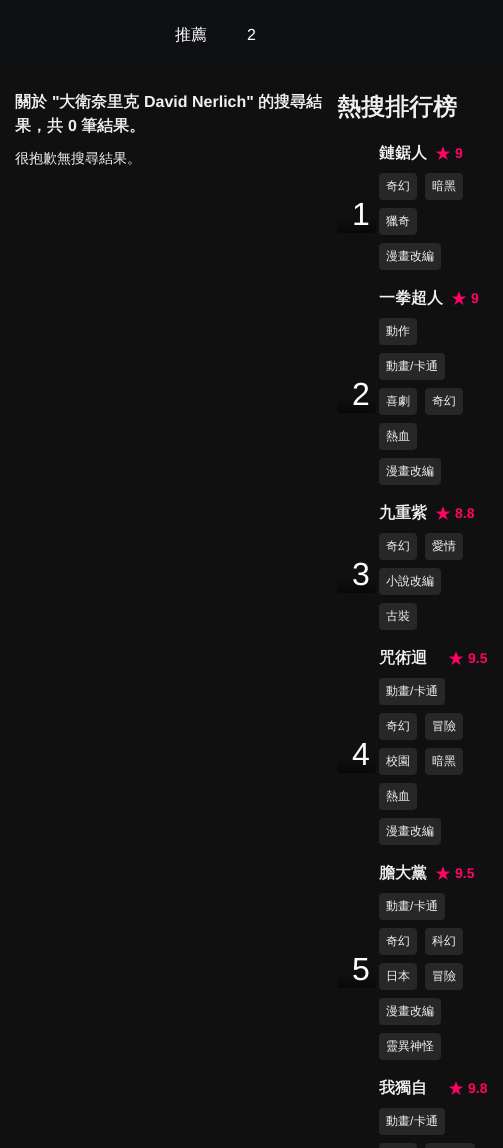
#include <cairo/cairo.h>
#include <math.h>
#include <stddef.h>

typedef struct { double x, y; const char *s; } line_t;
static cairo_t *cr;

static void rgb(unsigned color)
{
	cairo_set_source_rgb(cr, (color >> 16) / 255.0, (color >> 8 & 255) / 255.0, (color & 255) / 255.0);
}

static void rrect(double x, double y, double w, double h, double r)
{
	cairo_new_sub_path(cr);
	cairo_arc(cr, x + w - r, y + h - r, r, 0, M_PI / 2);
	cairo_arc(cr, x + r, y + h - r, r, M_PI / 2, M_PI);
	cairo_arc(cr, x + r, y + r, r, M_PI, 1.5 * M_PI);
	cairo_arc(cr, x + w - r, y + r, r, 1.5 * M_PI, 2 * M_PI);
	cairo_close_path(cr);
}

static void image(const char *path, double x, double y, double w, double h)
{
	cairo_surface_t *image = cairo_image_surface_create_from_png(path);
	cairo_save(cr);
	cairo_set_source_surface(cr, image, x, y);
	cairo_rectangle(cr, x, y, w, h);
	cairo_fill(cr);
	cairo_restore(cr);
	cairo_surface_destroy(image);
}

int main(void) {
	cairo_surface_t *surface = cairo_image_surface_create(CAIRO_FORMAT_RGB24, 503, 1148);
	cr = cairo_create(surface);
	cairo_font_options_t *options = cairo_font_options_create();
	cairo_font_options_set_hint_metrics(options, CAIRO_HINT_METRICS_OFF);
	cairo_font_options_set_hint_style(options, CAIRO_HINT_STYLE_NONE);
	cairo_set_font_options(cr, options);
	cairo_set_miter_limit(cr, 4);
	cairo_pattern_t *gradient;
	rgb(0x101010);
	cairo_paint(cr);
	rgb(0x0f1013);
	cairo_rectangle(cr, 0, 0, 503, 70);
	cairo_fill(cr);
	gradient = cairo_pattern_create_linear(357, 178, 357, 233);
	cairo_pattern_add_color_stop_rgba(gradient, 0.71, 0.063, 0.063, 0.063, 1);
	cairo_pattern_add_color_stop_rgba(gradient, 1, 0.031, 0.031, 0.031, 1);
	cairo_set_source(cr, gradient);
	cairo_pattern_destroy(gradient);
	rrect(337, 178, 39, 55, 4);
	cairo_fill(cr);
	image("img/1.png", 435, 146, 16, 14);
	rgb(0x272727);
	rrect(379, 173, 38, 27, 4);
	cairo_fill(cr);
	rrect(425, 173, 38, 27, 4);
	cairo_fill(cr);
	rrect(379, 208, 38, 27, 4);
	cairo_fill(cr);
	rrect(379, 243, 62, 27, 4);
	cairo_fill(cr);
	gradient = cairo_pattern_create_linear(357, 358, 357, 413);
	cairo_pattern_add_color_stop_rgba(gradient, 0.71, 0.063, 0.063, 0.063, 1);
	cairo_pattern_add_color_stop_rgba(gradient, 1, 0.031, 0.031, 0.031, 1);
	cairo_set_source(cr, gradient);
	cairo_pattern_destroy(gradient);
	rrect(337, 358, 39, 55, 4);
	cairo_fill(cr);
	image("img/1.png", 451, 291, 16, 14);
	rgb(0x272727);
	rrect(379, 318, 38, 27, 4);
	cairo_fill(cr);
	rrect(379, 353, 66, 27, 4);
	cairo_fill(cr);
	rrect(379, 388, 38, 27, 4);
	cairo_fill(cr);
	rrect(425, 388, 38, 27, 4);
	cairo_fill(cr);
	rrect(379, 423, 38, 27, 4);
	cairo_fill(cr);
	rrect(379, 458, 62, 27, 4);
	cairo_fill(cr);
	gradient = cairo_pattern_create_linear(357, 538, 357, 593);
	cairo_pattern_add_color_stop_rgba(gradient, 0.71, 0.063, 0.063, 0.063, 1);
	cairo_pattern_add_color_stop_rgba(gradient, 1, 0.031, 0.031, 0.031, 1);
	cairo_set_source(cr, gradient);
	cairo_pattern_destroy(gradient);
	rrect(337, 538, 39, 55, 4);
	cairo_fill(cr);
	image("img/1.png", 435, 506, 16, 14);
	rgb(0x272727);
	rrect(379, 533, 38, 27, 4);
	cairo_fill(cr);
	rrect(425, 533, 38, 27, 4);
	cairo_fill(cr);
	rrect(379, 568, 62, 27, 4);
	cairo_fill(cr);
	rrect(379, 603, 38, 27, 4);
	cairo_fill(cr);
	gradient = cairo_pattern_create_linear(357, 718, 357, 773);
	cairo_pattern_add_color_stop_rgba(gradient, 0.71, 0.063, 0.063, 0.063, 1);
	cairo_pattern_add_color_stop_rgba(gradient, 1, 0.031, 0.031, 0.031, 1);
	cairo_set_source(cr, gradient);
	cairo_pattern_destroy(gradient);
	rrect(337, 718, 39, 55, 4);
	cairo_fill(cr);
	image("img/1.png", 448, 651, 16, 14);
	rgb(0x272727);
	rrect(379, 678, 66, 27, 4);
	cairo_fill(cr);
	rrect(379, 713, 38, 27, 4);
	cairo_fill(cr);
	rrect(425, 713, 38, 27, 4);
	cairo_fill(cr);
	rrect(379, 748, 38, 27, 4);
	cairo_fill(cr);
	rrect(425, 748, 38, 27, 4);
	cairo_fill(cr);
	rrect(379, 783, 38, 27, 4);
	cairo_fill(cr);
	rrect(379, 818, 62, 27, 4);
	cairo_fill(cr);
	gradient = cairo_pattern_create_linear(357, 933, 357, 988);
	cairo_pattern_add_color_stop_rgba(gradient, 0.71, 0.063, 0.063, 0.063, 1);
	cairo_pattern_add_color_stop_rgba(gradient, 1, 0.031, 0.031, 0.031, 1);
	cairo_set_source(cr, gradient);
	cairo_pattern_destroy(gradient);
	rrect(337, 933, 39, 55, 4);
	cairo_fill(cr);
	image("img/1.png", 435, 866, 16, 14);
	rgb(0x272727);
	rrect(379, 893, 66, 27, 4);
	cairo_fill(cr);
	rrect(379, 928, 38, 27, 4);
	cairo_fill(cr);
	rrect(425, 928, 38, 27, 4);
	cairo_fill(cr);
	rrect(379, 963, 38, 27, 4);
	cairo_fill(cr);
	rrect(425, 963, 38, 27, 4);
	cairo_fill(cr);
	rrect(379, 998, 62, 27, 4);
	cairo_fill(cr);
	rrect(379, 1033, 62, 27, 4);
	cairo_fill(cr);
	image("img/1.png", 448, 1081, 16, 14);
	rrect(379, 1108, 66, 27, 4);
	cairo_fill(cr);
	rrect(379, 1143, 38, 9, 4);
	cairo_fill(cr);
	rrect(425, 1143, 50, 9, 4);
	cairo_fill(cr);
	cairo_select_font_face(cr, "WenQuanYi Zen Hei Medium", CAIRO_FONT_SLANT_NORMAL, CAIRO_FONT_WEIGHT_NORMAL);
	cairo_set_font_size(cr, 16);
	rgb(0xffffff);
	cairo_move_to(cr, 175, 40);
	cairo_show_text(cr, "推薦");
	cairo_select_font_face(cr, "Liberation Sans", CAIRO_FONT_SLANT_NORMAL, CAIRO_FONT_WEIGHT_NORMAL);
	cairo_move_to(cr, 247, 40);
	cairo_show_text(cr, "2");
	cairo_select_font_face(cr, "WenQuanYi Zen Hei", CAIRO_FONT_SLANT_NORMAL, CAIRO_FONT_WEIGHT_BOLD);
	rgb(0xf1f1f1);
	cairo_move_to(cr, 15, 107);
	cairo_show_text(cr, "關於");
	cairo_select_font_face(cr, "Liberation Sans", CAIRO_FONT_SLANT_NORMAL, CAIRO_FONT_WEIGHT_BOLD);
	cairo_move_to(cr, 52, 107);
	cairo_show_text(cr, "\"");
	cairo_select_font_face(cr, "WenQuanYi Zen Hei", CAIRO_FONT_SLANT_NORMAL, CAIRO_FONT_WEIGHT_BOLD);
	cairo_move_to(cr, 59, 107);
	cairo_show_text(cr, "大衛奈里克");
	cairo_select_font_face(cr, "Liberation Sans", CAIRO_FONT_SLANT_NORMAL, CAIRO_FONT_WEIGHT_BOLD);
	cairo_move_to(cr, 144, 107);
	cairo_show_text(cr, "David Nerlich\"");
	cairo_select_font_face(cr, "WenQuanYi Zen Hei", CAIRO_FONT_SLANT_NORMAL, CAIRO_FONT_WEIGHT_BOLD);
	cairo_move_to(cr, 258, 107);
	cairo_show_text(cr, "的搜尋結");
	cairo_move_to(cr, 15, 131);
	cairo_show_text(cr, "果，共");
	cairo_select_font_face(cr, "Liberation Sans", CAIRO_FONT_SLANT_NORMAL, CAIRO_FONT_WEIGHT_BOLD);
	cairo_move_to(cr, 68, 131);
	cairo_show_text(cr, "0");
	cairo_select_font_face(cr, "WenQuanYi Zen Hei", CAIRO_FONT_SLANT_NORMAL, CAIRO_FONT_WEIGHT_BOLD);
	cairo_move_to(cr, 81, 131);
	cairo_show_text(cr, "筆結果。");
	cairo_select_font_face(cr, "WenQuanYi Zen Hei Medium", CAIRO_FONT_SLANT_NORMAL, CAIRO_FONT_WEIGHT_NORMAL);
	cairo_set_font_size(cr, 14);
	cairo_move_to(cr, 15, 163);
	cairo_show_text(cr, "很抱歉無搜尋結果。");
	cairo_select_font_face(cr, "WenQuanYi Zen Hei", CAIRO_FONT_SLANT_NORMAL, CAIRO_FONT_WEIGHT_BOLD);
	cairo_set_font_size(cr, 24);
	cairo_move_to(cr, 337, 115);
	cairo_show_text(cr, "熱搜排行榜");
	cairo_select_font_face(cr, "Liberation Sans", CAIRO_FONT_SLANT_NORMAL, CAIRO_FONT_WEIGHT_NORMAL);
	cairo_set_font_size(cr, 32);
	rgb(0xffffff);
	cairo_move_to(cr, 352, 225);
	cairo_show_text(cr, "1");
	cairo_select_font_face(cr, "WenQuanYi Zen Hei", CAIRO_FONT_SLANT_NORMAL, CAIRO_FONT_WEIGHT_BOLD);
	cairo_set_font_size(cr, 16);
	rgb(0xf1f1f1);
	cairo_move_to(cr, 379, 158);
	cairo_show_text(cr, "鏈鋸人");
	cairo_select_font_face(cr, "Liberation Sans", CAIRO_FONT_SLANT_NORMAL, CAIRO_FONT_WEIGHT_BOLD);
	cairo_set_font_size(cr, 14);
	rgb(0xff0266);
	cairo_move_to(cr, 455, 158);
	cairo_show_text(cr, "9");
	cairo_select_font_face(cr, "WenQuanYi Zen Hei Medium", CAIRO_FONT_SLANT_NORMAL, CAIRO_FONT_WEIGHT_NORMAL);
	cairo_set_font_size(cr, 12);
	rgb(0xf1f1f1);
	{
		static const line_t items[] = {
			{386, 190, "奇幻"},
			{432, 190, "暗黑"},
			{386, 225, "獵奇"},
			{386, 260, "漫畫改編"},
		};
		for (size_t i = 0; i < sizeof items / sizeof *items; i++) {
			cairo_move_to(cr, items[i].x, items[i].y);
			cairo_show_text(cr, items[i].s);
		}
	}
	cairo_select_font_face(cr, "Liberation Sans", CAIRO_FONT_SLANT_NORMAL, CAIRO_FONT_WEIGHT_NORMAL);
	cairo_set_font_size(cr, 32);
	rgb(0xffffff);
	cairo_move_to(cr, 352, 405);
	cairo_show_text(cr, "2");
	cairo_select_font_face(cr, "WenQuanYi Zen Hei", CAIRO_FONT_SLANT_NORMAL, CAIRO_FONT_WEIGHT_BOLD);
	cairo_set_font_size(cr, 16);
	rgb(0xf1f1f1);
	cairo_move_to(cr, 379, 303);
	cairo_show_text(cr, "一拳超人");
	cairo_select_font_face(cr, "Liberation Sans", CAIRO_FONT_SLANT_NORMAL, CAIRO_FONT_WEIGHT_BOLD);
	cairo_set_font_size(cr, 14);
	rgb(0xff0266);
	cairo_move_to(cr, 471, 303);
	cairo_show_text(cr, "9");
	cairo_select_font_face(cr, "WenQuanYi Zen Hei Medium", CAIRO_FONT_SLANT_NORMAL, CAIRO_FONT_WEIGHT_NORMAL);
	cairo_set_font_size(cr, 12);
	rgb(0xf1f1f1);
	cairo_move_to(cr, 386, 335);
	cairo_show_text(cr, "動作");
	cairo_move_to(cr, 386, 370);
	cairo_show_text(cr, "動畫");
	cairo_select_font_face(cr, "Liberation Sans", CAIRO_FONT_SLANT_NORMAL, CAIRO_FONT_WEIGHT_NORMAL);
	cairo_move_to(cr, 410, 370);
	cairo_show_text(cr, "/");
	cairo_select_font_face(cr, "WenQuanYi Zen Hei Medium", CAIRO_FONT_SLANT_NORMAL, CAIRO_FONT_WEIGHT_NORMAL);
	{
		static const line_t items[] = {
			{414, 370, "卡通"},
			{386, 405, "喜劇"},
			{432, 405, "奇幻"},
			{386, 440, "熱血"},
			{386, 475, "漫畫改編"},
		};
		for (size_t i = 0; i < sizeof items / sizeof *items; i++) {
			cairo_move_to(cr, items[i].x, items[i].y);
			cairo_show_text(cr, items[i].s);
		}
	}
	cairo_select_font_face(cr, "Liberation Sans", CAIRO_FONT_SLANT_NORMAL, CAIRO_FONT_WEIGHT_NORMAL);
	cairo_set_font_size(cr, 32);
	rgb(0xffffff);
	cairo_move_to(cr, 352, 585);
	cairo_show_text(cr, "3");
	cairo_select_font_face(cr, "WenQuanYi Zen Hei", CAIRO_FONT_SLANT_NORMAL, CAIRO_FONT_WEIGHT_BOLD);
	cairo_set_font_size(cr, 16);
	rgb(0xf1f1f1);
	cairo_move_to(cr, 379, 518);
	cairo_show_text(cr, "九重紫");
	cairo_select_font_face(cr, "Liberation Sans", CAIRO_FONT_SLANT_NORMAL, CAIRO_FONT_WEIGHT_BOLD);
	cairo_set_font_size(cr, 14);
	rgb(0xff0266);
	cairo_move_to(cr, 455, 518);
	cairo_show_text(cr, "8.8");
	cairo_select_font_face(cr, "WenQuanYi Zen Hei Medium", CAIRO_FONT_SLANT_NORMAL, CAIRO_FONT_WEIGHT_NORMAL);
	cairo_set_font_size(cr, 12);
	rgb(0xf1f1f1);
	{
		static const line_t items[] = {
			{386, 550, "奇幻"},
			{432, 550, "愛情"},
			{386, 585, "小說改編"},
			{386, 620, "古裝"},
		};
		for (size_t i = 0; i < sizeof items / sizeof *items; i++) {
			cairo_move_to(cr, items[i].x, items[i].y);
			cairo_show_text(cr, items[i].s);
		}
	}
	cairo_select_font_face(cr, "Liberation Sans", CAIRO_FONT_SLANT_NORMAL, CAIRO_FONT_WEIGHT_NORMAL);
	cairo_set_font_size(cr, 32);
	rgb(0xffffff);
	cairo_move_to(cr, 352, 765);
	cairo_show_text(cr, "4");
	cairo_select_font_face(cr, "WenQuanYi Zen Hei", CAIRO_FONT_SLANT_NORMAL, CAIRO_FONT_WEIGHT_BOLD);
	cairo_set_font_size(cr, 16);
	rgb(0xf1f1f1);
	cairo_move_to(cr, 379, 663);
	cairo_show_text(cr, "咒術迴");
	cairo_select_font_face(cr, "Liberation Sans", CAIRO_FONT_SLANT_NORMAL, CAIRO_FONT_WEIGHT_BOLD);
	cairo_set_font_size(cr, 14);
	rgb(0xff0266);
	cairo_move_to(cr, 468, 663);
	cairo_show_text(cr, "9.5");
	cairo_select_font_face(cr, "WenQuanYi Zen Hei Medium", CAIRO_FONT_SLANT_NORMAL, CAIRO_FONT_WEIGHT_NORMAL);
	cairo_set_font_size(cr, 12);
	rgb(0xf1f1f1);
	cairo_move_to(cr, 386, 695);
	cairo_show_text(cr, "動畫");
	cairo_select_font_face(cr, "Liberation Sans", CAIRO_FONT_SLANT_NORMAL, CAIRO_FONT_WEIGHT_NORMAL);
	cairo_move_to(cr, 410, 695);
	cairo_show_text(cr, "/");
	cairo_select_font_face(cr, "WenQuanYi Zen Hei Medium", CAIRO_FONT_SLANT_NORMAL, CAIRO_FONT_WEIGHT_NORMAL);
	{
		static const line_t items[] = {
			{414, 695, "卡通"},
			{386, 730, "奇幻"},
			{432, 730, "冒險"},
			{386, 765, "校園"},
			{432, 765, "暗黑"},
			{386, 800, "熱血"},
			{386, 835, "漫畫改編"},
		};
		for (size_t i = 0; i < sizeof items / sizeof *items; i++) {
			cairo_move_to(cr, items[i].x, items[i].y);
			cairo_show_text(cr, items[i].s);
		}
	}
	cairo_select_font_face(cr, "Liberation Sans", CAIRO_FONT_SLANT_NORMAL, CAIRO_FONT_WEIGHT_NORMAL);
	cairo_set_font_size(cr, 32);
	rgb(0xffffff);
	cairo_move_to(cr, 352, 980);
	cairo_show_text(cr, "5");
	cairo_select_font_face(cr, "WenQuanYi Zen Hei", CAIRO_FONT_SLANT_NORMAL, CAIRO_FONT_WEIGHT_BOLD);
	cairo_set_font_size(cr, 16);
	rgb(0xf1f1f1);
	cairo_move_to(cr, 379, 878);
	cairo_show_text(cr, "膽大黨");
	cairo_select_font_face(cr, "Liberation Sans", CAIRO_FONT_SLANT_NORMAL, CAIRO_FONT_WEIGHT_BOLD);
	cairo_set_font_size(cr, 14);
	rgb(0xff0266);
	cairo_move_to(cr, 455, 878);
	cairo_show_text(cr, "9.5");
	cairo_select_font_face(cr, "WenQuanYi Zen Hei Medium", CAIRO_FONT_SLANT_NORMAL, CAIRO_FONT_WEIGHT_NORMAL);
	cairo_set_font_size(cr, 12);
	rgb(0xf1f1f1);
	cairo_move_to(cr, 386, 910);
	cairo_show_text(cr, "動畫");
	cairo_select_font_face(cr, "Liberation Sans", CAIRO_FONT_SLANT_NORMAL, CAIRO_FONT_WEIGHT_NORMAL);
	cairo_move_to(cr, 410, 910);
	cairo_show_text(cr, "/");
	cairo_select_font_face(cr, "WenQuanYi Zen Hei Medium", CAIRO_FONT_SLANT_NORMAL, CAIRO_FONT_WEIGHT_NORMAL);
	{
		static const line_t items[] = {
			{414, 910, "卡通"},
			{386, 945, "奇幻"},
			{432, 945, "科幻"},
			{386, 980, "日本"},
			{432, 980, "冒險"},
			{386, 1015, "漫畫改編"},
			{386, 1050, "靈異神怪"},
		};
		for (size_t i = 0; i < sizeof items / sizeof *items; i++) {
			cairo_move_to(cr, items[i].x, items[i].y);
			cairo_show_text(cr, items[i].s);
		}
	}
	cairo_select_font_face(cr, "WenQuanYi Zen Hei", CAIRO_FONT_SLANT_NORMAL, CAIRO_FONT_WEIGHT_BOLD);
	cairo_set_font_size(cr, 16);
	cairo_move_to(cr, 379, 1093);
	cairo_show_text(cr, "我獨自");
	cairo_select_font_face(cr, "Liberation Sans", CAIRO_FONT_SLANT_NORMAL, CAIRO_FONT_WEIGHT_BOLD);
	cairo_set_font_size(cr, 14);
	rgb(0xff0266);
	cairo_move_to(cr, 468, 1093);
	cairo_show_text(cr, "9.8");
	cairo_select_font_face(cr, "WenQuanYi Zen Hei Medium", CAIRO_FONT_SLANT_NORMAL, CAIRO_FONT_WEIGHT_NORMAL);
	cairo_set_font_size(cr, 12);
	rgb(0xf1f1f1);
	cairo_move_to(cr, 386, 1125);
	cairo_show_text(cr, "動畫");
	cairo_select_font_face(cr, "Liberation Sans", CAIRO_FONT_SLANT_NORMAL, CAIRO_FONT_WEIGHT_NORMAL);
	cairo_move_to(cr, 410, 1125);
	cairo_show_text(cr, "/");
	cairo_select_font_face(cr, "WenQuanYi Zen Hei Medium", CAIRO_FONT_SLANT_NORMAL, CAIRO_FONT_WEIGHT_NORMAL);
	cairo_move_to(cr, 414, 1125);
	cairo_show_text(cr, "卡通");
	cairo_surface_write_to_png(surface, "page.png");
	cairo_font_options_destroy(options);
	cairo_destroy(cr);
	cairo_surface_destroy(surface);
	return 0;
}
